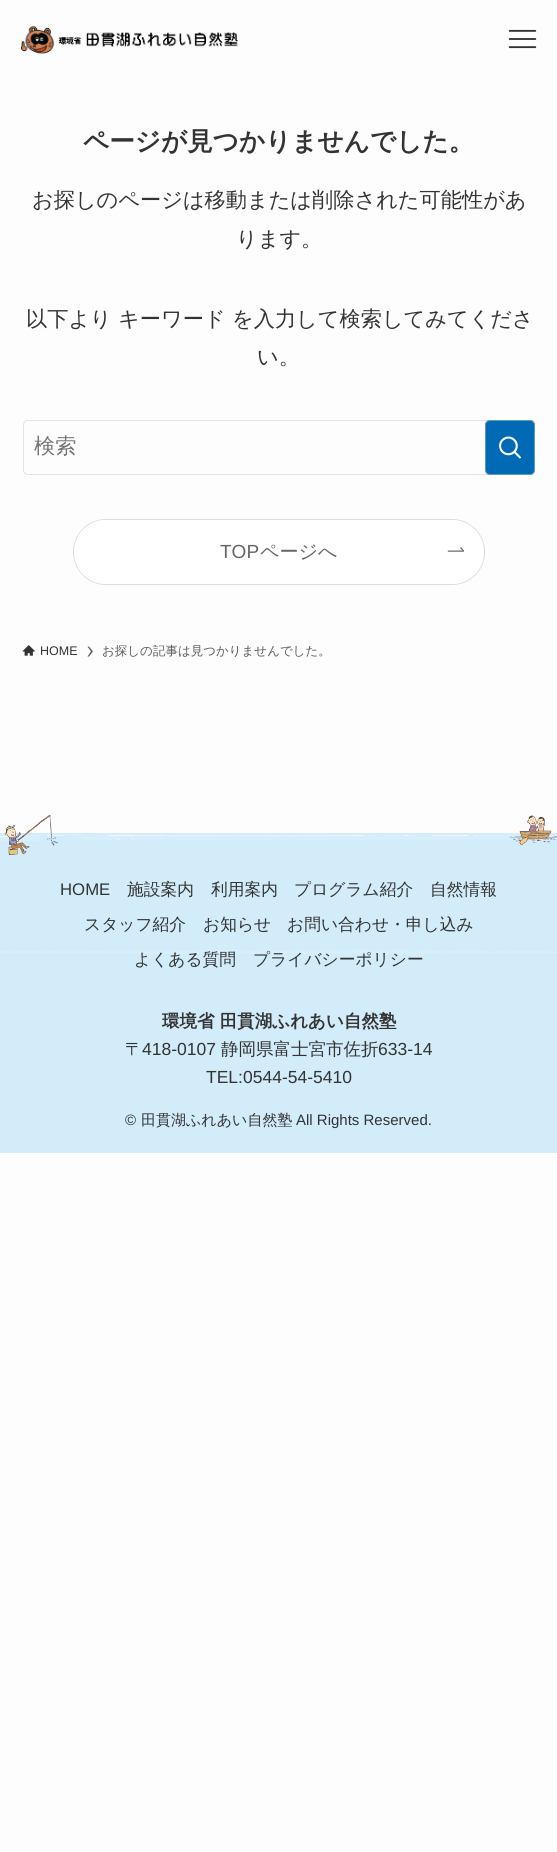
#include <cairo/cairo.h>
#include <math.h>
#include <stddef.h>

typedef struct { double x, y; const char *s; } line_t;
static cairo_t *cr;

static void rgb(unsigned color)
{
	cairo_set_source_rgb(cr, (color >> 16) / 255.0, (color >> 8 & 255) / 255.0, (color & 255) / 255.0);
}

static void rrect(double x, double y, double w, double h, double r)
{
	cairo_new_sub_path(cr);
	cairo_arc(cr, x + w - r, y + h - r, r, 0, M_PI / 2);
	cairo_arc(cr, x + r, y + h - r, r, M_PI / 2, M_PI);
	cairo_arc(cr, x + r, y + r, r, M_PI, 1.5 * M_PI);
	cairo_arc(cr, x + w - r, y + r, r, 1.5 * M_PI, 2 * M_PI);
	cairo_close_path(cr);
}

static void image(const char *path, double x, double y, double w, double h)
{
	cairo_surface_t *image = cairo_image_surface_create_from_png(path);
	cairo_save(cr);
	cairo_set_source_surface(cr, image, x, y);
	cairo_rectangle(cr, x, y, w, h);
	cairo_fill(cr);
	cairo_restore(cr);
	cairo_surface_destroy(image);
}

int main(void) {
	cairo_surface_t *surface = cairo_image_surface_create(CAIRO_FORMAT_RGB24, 557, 1852);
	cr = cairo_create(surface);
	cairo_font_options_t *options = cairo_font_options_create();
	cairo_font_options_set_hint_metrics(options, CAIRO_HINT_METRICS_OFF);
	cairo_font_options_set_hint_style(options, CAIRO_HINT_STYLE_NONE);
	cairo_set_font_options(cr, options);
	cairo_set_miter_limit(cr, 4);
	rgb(0xfdfdfd);
	cairo_paint(cr);
	image("img/1.png", 21, 26, 217, 28);
	image("img/2.png", 508, 29, 29, 20);
	rrect(23.5, 420.5, 511, 54, 4.5);
	rgb(0xe3e3e3);
	cairo_set_line_width(cr, 1);
	cairo_stroke(cr);
	rgb(0x006bb4);
	rrect(485, 420, 50, 55, 5);
	cairo_fill(cr);
	rrect(485.5, 420.5, 49, 54, 4.5);
	cairo_set_source_rgba(cr, 0.78, 0.78, 0.78, 0.5);
	cairo_stroke(cr);
	image("img/3.png", 499, 436, 22, 23);
	rrect(73.5, 519.5, 411, 65, 32.5);
	rgb(0xdcdcdc);
	cairo_stroke(cr);
	rgb(0xffffff);
	rrect(74, 520, 410, 64, 32);
	cairo_fill(cr);
	image("img/4.png", 447, 547, 18, 5);
	image("img/5.png", 22, 645, 13, 11);
	rgb(0x5b5b5b);
	cairo_new_path(cr);
	cairo_move_to(cr, 89, 646.5);
	cairo_line_to(cr, 87.5, 646.5);
	cairo_line_to(cr, 91, 651.5);
	cairo_line_to(cr, 87.5, 656.5);
	cairo_line_to(cr, 89, 656.5);
	cairo_line_to(cr, 93, 651.5);
	cairo_close_path(cr);
	cairo_fill(cr);
	rgb(0xd2ecfa);
	cairo_rectangle(cr, 0, 833, 557, 320);
	cairo_fill(cr);
	image("img/6.png", 0, 815, 557, 139);
	cairo_select_font_face(cr, "WenQuanYi Zen Hei", CAIRO_FONT_SLANT_NORMAL, CAIRO_FONT_WEIGHT_BOLD);
	cairo_set_font_size(cr, 25.6);
	rgb(0x333333);
	cairo_move_to(cr, 83, 150);
	cairo_show_text(cr, "ページが見つかりませんでした。");
	cairo_select_font_face(cr, "WenQuanYi Zen Hei Medium", CAIRO_FONT_SLANT_NORMAL, CAIRO_FONT_WEIGHT_NORMAL);
	cairo_set_font_size(cr, 21.2);
	{
		static const line_t items[] = {
			{32, 207, "お探しのページは移動または削除された可能性があ"},
			{236, 246, "ります。"},
			{26, 326, "以下より キーワード を入力して検索してみてくださ"},
			{257, 364, "い。"},
		};
		for (size_t i = 0; i < sizeof items / sizeof *items; i++) {
			cairo_move_to(cr, items[i].x, items[i].y);
			cairo_show_text(cr, items[i].s);
		}
	}
	rgb(0x757575);
	cairo_move_to(cr, 34, 453);
	cairo_show_text(cr, "検索");
	cairo_select_font_face(cr, "Liberation Sans", CAIRO_FONT_SLANT_NORMAL, CAIRO_FONT_WEIGHT_NORMAL);
	cairo_set_font_size(cr, 19);
	rgb(0x666666);
	cairo_move_to(cr, 220, 558);
	cairo_show_text(cr, "TOP");
	cairo_select_font_face(cr, "WenQuanYi Zen Hei Medium", CAIRO_FONT_SLANT_NORMAL, CAIRO_FONT_WEIGHT_NORMAL);
	cairo_move_to(cr, 260, 558);
	cairo_show_text(cr, "ページへ");
	cairo_select_font_face(cr, "Liberation Sans", CAIRO_FONT_SLANT_NORMAL, CAIRO_FONT_WEIGHT_NORMAL);
	cairo_set_font_size(cr, 12.5);
	rgb(0x333333);
	cairo_move_to(cr, 40, 655);
	cairo_show_text(cr, "HOME");
	cairo_select_font_face(cr, "WenQuanYi Zen Hei Medium", CAIRO_FONT_SLANT_NORMAL, CAIRO_FONT_WEIGHT_NORMAL);
	rgb(0x5b5b5b);
	cairo_move_to(cr, 102, 655);
	cairo_show_text(cr, "お探しの記事は見つかりませんでした。");
	cairo_select_font_face(cr, "Liberation Sans", CAIRO_FONT_SLANT_NORMAL, CAIRO_FONT_WEIGHT_NORMAL);
	cairo_set_font_size(cr, 16.75);
	rgb(0x333333);
	cairo_move_to(cr, 60, 895);
	cairo_show_text(cr, "HOME");
	cairo_select_font_face(cr, "WenQuanYi Zen Hei Medium", CAIRO_FONT_SLANT_NORMAL, CAIRO_FONT_WEIGHT_NORMAL);
	{
		static const line_t items[] = {
			{127, 895, "施設案内"},
			{211, 895, "利用案内"},
			{294, 895, "プログラム紹介"},
			{430, 895, "自然情報"},
			{84, 930, "スタッフ紹介"},
			{203, 930, "お知らせ"},
			{287, 930, "お問い合わせ・申し込み"},
			{134, 965, "よくある質問"},
			{253, 965, "プライバシーポリシー"},
		};
		for (size_t i = 0; i < sizeof items / sizeof *items; i++) {
			cairo_move_to(cr, items[i].x, items[i].y);
			cairo_show_text(cr, items[i].s);
		}
	}
	cairo_select_font_face(cr, "WenQuanYi Zen Hei", CAIRO_FONT_SLANT_NORMAL, CAIRO_FONT_WEIGHT_BOLD);
	cairo_set_font_size(cr, 17.5);
	cairo_move_to(cr, 162, 1027);
	cairo_show_text(cr, "環境省 田貫湖ふれあい自然塾");
	cairo_select_font_face(cr, "WenQuanYi Zen Hei Medium", CAIRO_FONT_SLANT_NORMAL, CAIRO_FONT_WEIGHT_NORMAL);
	cairo_move_to(cr, 125, 1055);
	cairo_show_text(cr, "〒");
	cairo_select_font_face(cr, "Liberation Sans", CAIRO_FONT_SLANT_NORMAL, CAIRO_FONT_WEIGHT_NORMAL);
	cairo_move_to(cr, 142, 1055);
	cairo_show_text(cr, "418-0107");
	cairo_select_font_face(cr, "WenQuanYi Zen Hei Medium", CAIRO_FONT_SLANT_NORMAL, CAIRO_FONT_WEIGHT_NORMAL);
	cairo_move_to(cr, 221, 1055);
	cairo_show_text(cr, "静岡県富士宮市佐折");
	cairo_select_font_face(cr, "Liberation Sans", CAIRO_FONT_SLANT_NORMAL, CAIRO_FONT_WEIGHT_NORMAL);
	cairo_move_to(cr, 378, 1055);
	cairo_show_text(cr, "633-14");
	cairo_move_to(cr, 206, 1083);
	cairo_show_text(cr, "TEL:0544-54-5410");
	cairo_set_font_size(cr, 15);
	cairo_move_to(cr, 125, 1125);
	cairo_show_text(cr, "©");
	cairo_select_font_face(cr, "WenQuanYi Zen Hei Medium", CAIRO_FONT_SLANT_NORMAL, CAIRO_FONT_WEIGHT_NORMAL);
	cairo_move_to(cr, 141, 1125);
	cairo_show_text(cr, "田貫湖ふれあい自然塾");
	cairo_select_font_face(cr, "Liberation Sans", CAIRO_FONT_SLANT_NORMAL, CAIRO_FONT_WEIGHT_NORMAL);
	cairo_move_to(cr, 296, 1125);
	cairo_show_text(cr, "All Rights Reserved.");
	cairo_surface_write_to_png(surface, "page.png");
	cairo_font_options_destroy(options);
	cairo_destroy(cr);
	cairo_surface_destroy(surface);
	return 0;
}
